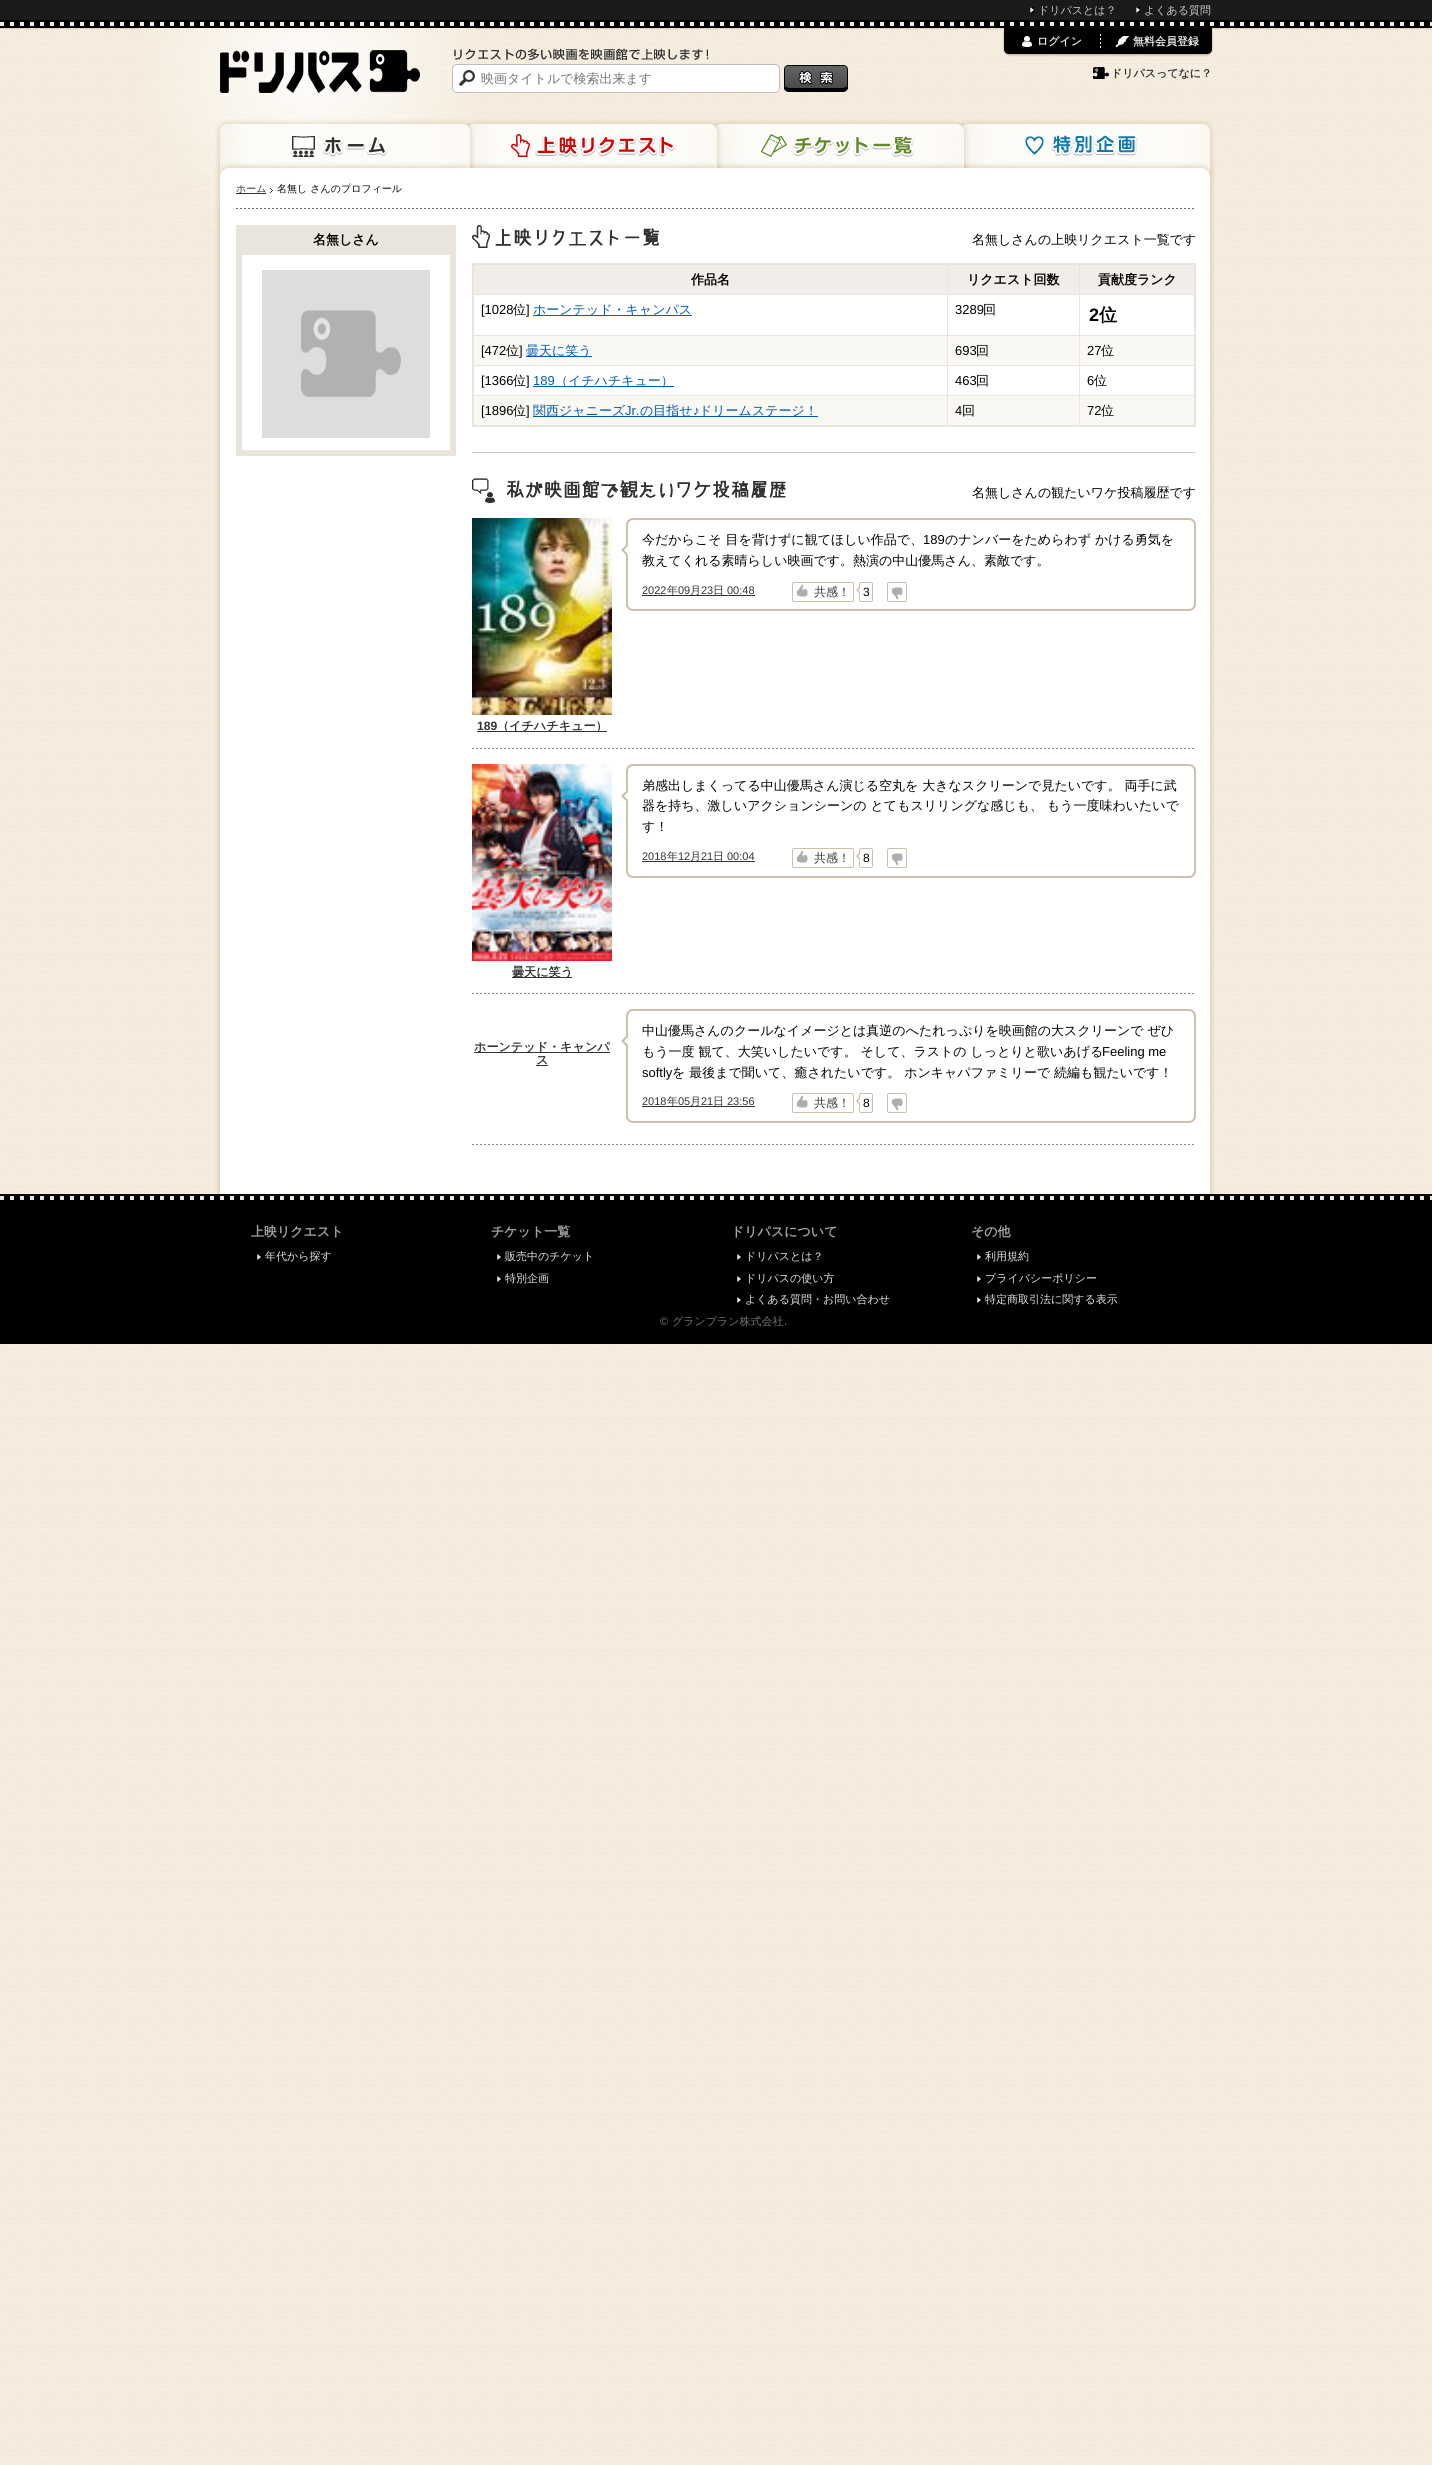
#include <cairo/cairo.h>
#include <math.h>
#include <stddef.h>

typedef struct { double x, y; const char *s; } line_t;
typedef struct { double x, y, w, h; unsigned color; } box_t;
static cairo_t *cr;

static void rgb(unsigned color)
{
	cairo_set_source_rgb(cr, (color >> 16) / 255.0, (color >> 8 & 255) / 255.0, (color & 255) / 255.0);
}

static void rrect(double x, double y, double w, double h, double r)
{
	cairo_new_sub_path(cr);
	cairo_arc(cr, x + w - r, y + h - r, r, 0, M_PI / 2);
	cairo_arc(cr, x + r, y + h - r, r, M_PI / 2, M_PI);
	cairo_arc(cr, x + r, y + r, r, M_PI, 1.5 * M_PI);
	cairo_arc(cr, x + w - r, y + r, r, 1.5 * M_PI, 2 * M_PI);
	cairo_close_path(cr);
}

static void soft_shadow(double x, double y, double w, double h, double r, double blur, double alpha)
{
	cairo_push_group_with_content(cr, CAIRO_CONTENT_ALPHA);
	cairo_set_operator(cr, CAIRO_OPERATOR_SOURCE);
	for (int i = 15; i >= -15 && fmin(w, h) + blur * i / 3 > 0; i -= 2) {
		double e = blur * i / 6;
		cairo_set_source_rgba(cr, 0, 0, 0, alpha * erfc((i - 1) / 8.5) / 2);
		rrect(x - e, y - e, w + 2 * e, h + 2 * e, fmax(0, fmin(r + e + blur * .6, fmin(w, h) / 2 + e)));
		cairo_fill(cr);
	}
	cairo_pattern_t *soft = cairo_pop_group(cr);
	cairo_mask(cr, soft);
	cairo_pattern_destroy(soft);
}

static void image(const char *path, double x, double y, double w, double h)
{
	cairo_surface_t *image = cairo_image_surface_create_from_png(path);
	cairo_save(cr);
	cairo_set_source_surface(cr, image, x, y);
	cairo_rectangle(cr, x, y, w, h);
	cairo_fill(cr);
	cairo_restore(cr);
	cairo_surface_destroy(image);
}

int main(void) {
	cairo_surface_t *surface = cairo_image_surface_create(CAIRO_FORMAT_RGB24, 1432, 2465);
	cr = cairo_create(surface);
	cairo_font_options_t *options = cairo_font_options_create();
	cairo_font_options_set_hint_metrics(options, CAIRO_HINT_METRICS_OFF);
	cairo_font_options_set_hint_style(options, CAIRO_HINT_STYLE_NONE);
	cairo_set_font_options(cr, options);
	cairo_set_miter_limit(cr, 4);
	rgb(0xffffff);
	cairo_paint(cr);
	image("img/1.png", 0, 30, 1432, 2435);
	rgb(0x1a1a1a);
	cairo_rectangle(cr, 0, 0, 1432, 20);
	cairo_fill(cr);
	image("img/2.png", 1030, 7, 4, 6);
	image("img/2.png", 1136, 7, 4, 6);
	image("img/3.png", 0, 20, 1432, 10);
	image("img/4.png", 140, 28, 336, 212);
	image("img/5.png", 220, 50, 200, 43);
	image("img/6.png", 454, 48, 255, 12);
	rgb(0xffffff);
	rrect(452, 64, 328, 29, 5);
	cairo_fill(cr);
	image("img/7.png", 459, 70, 16, 16);
	rrect(452.5, 64.5, 327, 28, 4.5);
	rgb(0xbebebe);
	cairo_set_line_width(cr, 1);
	cairo_stroke(cr);
	image("img/8.png", 784, 65, 64, 27);
	rgb(0xbdac8c);
	soft_shadow(1004, 29, 208, 26, 5, 1, 1);
	rgb(0x000000);
	cairo_new_path(cr);
	cairo_move_to(cr, 1004, 28);
	cairo_line_to(cr, 1212, 28);
	cairo_line_to(cr, 1212, 49);
	cairo_curve_to(cr, 1212, 52, 1210, 54, 1207, 54);
	cairo_line_to(cr, 1009, 54);
	cairo_curve_to(cr, 1006, 54, 1004, 52, 1004, 49);
	cairo_close_path(cr);
	cairo_fill(cr);
	image("img/9.png", 1100, 34, 1, 14);
	image("img/10.png", 1022, 36, 10, 11);
	image("img/11.png", 1115, 36, 14, 11);
	image("img/12.png", 1093, 67, 16, 12);
	image("img/16.png", 958, 119, 257, 57);
	image("img/15.png", 711, 119, 258, 57);
	image("img/14.png", 464, 119, 258, 57);
	image("img/13.png", 215, 119, 260, 57);
	image("img/17.png", 215, 176, 1000, 1018);
	image("img/18.png", 236, 208, 958, 1);
	rgb(0x333333);
	cairo_rectangle(cr, 236, 193, 30, 1);
	cairo_fill(cr);
	image("img/19.png", 270, 188, 3, 5);
	{
		static const box_t items[] = {
			{236, 225, 220, 30, 0xe9e5dc},
			{450, 255, 6, 201, 0xe9e5dc},
			{236, 450, 220, 6, 0xe9e5dc},
			{236, 255, 6, 201, 0xe9e5dc},
		};
		for (size_t i = 0; i < sizeof items / sizeof *items; i++) {
			rgb(items[i].color);
			cairo_rectangle(cr, items[i].x, items[i].y, items[i].w, items[i].h);
			cairo_fill(cr);
		}
	}
	image("img/20.png", 262, 270, 168, 168);
	image("img/21.png", 472, 225, 187, 23);
	cairo_rectangle(cr, 473, 264, 722, 162);
	cairo_set_line_width(cr, 2);
	cairo_stroke(cr);
	{
		static const box_t items[] = {
			{474, 265, 473, 29, 0xf1eee9},
			{947, 265, 1, 160, 0xe9e5dc},
			{474, 294, 474, 1, 0xe9e5dc},
			{948, 265, 131, 29, 0xf1eee9},
			{1079, 265, 1, 160, 0xe9e5dc},
			{948, 294, 246, 1, 0xe9e5dc},
			{1080, 265, 114, 29, 0xf1eee9},
			{474, 335, 720, 1, 0xe9e5dc},
			{533, 315, 159, 1, 0x0059b3},
			{474, 336, 473, 29, 0xfaf8f2},
			{474, 365, 720, 1, 0xe9e5dc},
			{526, 356, 66, 1, 0x0059b3},
			{948, 336, 131, 29, 0xfaf8f2},
			{1080, 336, 114, 29, 0xfaf8f2},
			{474, 395, 720, 1, 0xe9e5dc},
			{533, 386, 141, 1, 0x0059b3},
			{474, 396, 473, 29, 0xfaf8f2},
			{533, 416, 285, 1, 0x0059b3},
			{948, 396, 131, 29, 0xfaf8f2},
			{1080, 396, 114, 29, 0xfaf8f2},
			{472, 452, 724, 1, 0xcccccc},
		};
		for (size_t i = 0; i < sizeof items / sizeof *items; i++) {
			rgb(items[i].color);
			cairo_rectangle(cr, items[i].x, items[i].y, items[i].w, items[i].h);
			cairo_fill(cr);
		}
	}
	image("img/22.png", 472, 478, 314, 25);
	image("img/23.png", 472, 748, 722, 1);
	rrect(627, 519, 568, 91, 6);
	rgb(0xcbc0ae);
	cairo_stroke(cr);
	cairo_new_path(cr);
	cairo_move_to(cr, 628, 543);
	cairo_line_to(cr, 628, 557);
	cairo_line_to(cr, 621, 550);
	cairo_close_path(cr);
	cairo_fill(cr);
	rgb(0xffffff);
	cairo_new_path(cr);
	cairo_move_to(cr, 628, 546);
	cairo_line_to(cr, 628, 554);
	cairo_line_to(cr, 624, 550);
	cairo_close_path(cr);
	cairo_fill(cr);
	rgb(0x333333);
	cairo_rectangle(cr, 642, 595, 113, 1);
	cairo_fill(cr);
	rrect(792.5, 582.5, 61, 19, 1.5);
	rgb(0xcbc0ae);
	cairo_set_line_width(cr, 1);
	cairo_stroke(cr);
	image("img/24.png", 796, 584, 12, 13);
	rrect(859.5, 582.5, 13, 19, 1.5);
	cairo_stroke(cr);
	cairo_new_path(cr);
	cairo_move_to(cr, 860, 586);
	cairo_line_to(cr, 860, 594);
	cairo_line_to(cr, 856, 590);
	cairo_close_path(cr);
	cairo_fill(cr);
	rgb(0xffffff);
	cairo_new_path(cr);
	cairo_move_to(cr, 860, 588);
	cairo_line_to(cr, 860, 592);
	cairo_line_to(cr, 858, 590);
	cairo_close_path(cr);
	cairo_fill(cr);
	rrect(887.5, 582.5, 19, 19, 1.5);
	rgb(0xcbc0ae);
	cairo_stroke(cr);
	image("img/25.png", 891, 587, 12, 13);
	image("img/26.png", 472, 518, 140, 197);
	rgb(0x333333);
	cairo_rectangle(cr, 477, 731, 130, 1);
	cairo_fill(cr);
	image("img/23.png", 472, 993, 722, 1);
	rrect(627, 765, 568, 112, 6);
	rgb(0xcbc0ae);
	cairo_set_line_width(cr, 2);
	cairo_stroke(cr);
	cairo_new_path(cr);
	cairo_move_to(cr, 628, 789);
	cairo_line_to(cr, 628, 803);
	cairo_line_to(cr, 621, 796);
	cairo_close_path(cr);
	cairo_fill(cr);
	rgb(0xffffff);
	cairo_new_path(cr);
	cairo_move_to(cr, 628, 792);
	cairo_line_to(cr, 628, 800);
	cairo_line_to(cr, 624, 796);
	cairo_close_path(cr);
	cairo_fill(cr);
	rgb(0x333333);
	cairo_rectangle(cr, 642, 861, 113, 1);
	cairo_fill(cr);
	rrect(792.5, 848.5, 61, 19, 1.5);
	rgb(0xcbc0ae);
	cairo_set_line_width(cr, 1);
	cairo_stroke(cr);
	image("img/24.png", 796, 850, 12, 13);
	rrect(859.5, 848.5, 13, 19, 1.5);
	cairo_stroke(cr);
	cairo_new_path(cr);
	cairo_move_to(cr, 860, 852);
	cairo_line_to(cr, 860, 860);
	cairo_line_to(cr, 856, 856);
	cairo_close_path(cr);
	cairo_fill(cr);
	rgb(0xffffff);
	cairo_new_path(cr);
	cairo_move_to(cr, 860, 854);
	cairo_line_to(cr, 860, 858);
	cairo_line_to(cr, 858, 856);
	cairo_close_path(cr);
	cairo_fill(cr);
	rrect(887.5, 848.5, 19, 19, 1.5);
	rgb(0xcbc0ae);
	cairo_stroke(cr);
	image("img/25.png", 891, 853, 12, 13);
	image("img/27.png", 472, 764, 140, 197);
	rgb(0x333333);
	cairo_rectangle(cr, 512, 977, 60, 1);
	cairo_fill(cr);
	image("img/23.png", 472, 1144, 722, 1);
	cairo_rectangle(cr, 474, 1052, 136, 1);
	cairo_fill(cr);
	cairo_rectangle(cr, 536, 1065, 12, 1);
	cairo_fill(cr);
	rrect(627, 1010, 568, 112, 6);
	rgb(0xcbc0ae);
	cairo_set_line_width(cr, 2);
	cairo_stroke(cr);
	cairo_new_path(cr);
	cairo_move_to(cr, 628, 1034);
	cairo_line_to(cr, 628, 1048);
	cairo_line_to(cr, 621, 1041);
	cairo_close_path(cr);
	cairo_fill(cr);
	rgb(0xffffff);
	cairo_new_path(cr);
	cairo_move_to(cr, 628, 1037);
	cairo_line_to(cr, 628, 1045);
	cairo_line_to(cr, 624, 1041);
	cairo_close_path(cr);
	cairo_fill(cr);
	rgb(0x333333);
	cairo_rectangle(cr, 642, 1106, 113, 1);
	cairo_fill(cr);
	rrect(792.5, 1093.5, 61, 19, 1.5);
	rgb(0xcbc0ae);
	cairo_set_line_width(cr, 1);
	cairo_stroke(cr);
	image("img/24.png", 796, 1095, 12, 13);
	rrect(859.5, 1093.5, 13, 19, 1.5);
	cairo_stroke(cr);
	cairo_new_path(cr);
	cairo_move_to(cr, 860, 1097);
	cairo_line_to(cr, 860, 1105);
	cairo_line_to(cr, 856, 1101);
	cairo_close_path(cr);
	cairo_fill(cr);
	rgb(0xffffff);
	cairo_new_path(cr);
	cairo_move_to(cr, 860, 1099);
	cairo_line_to(cr, 860, 1103);
	cairo_line_to(cr, 858, 1101);
	cairo_close_path(cr);
	cairo_fill(cr);
	rrect(887.5, 1093.5, 19, 19, 1.5);
	rgb(0xcbc0ae);
	cairo_stroke(cr);
	image("img/25.png", 891, 1098, 12, 13);
	rgb(0x000000);
	cairo_rectangle(cr, 0, 1194, 1432, 150);
	cairo_fill(cr);
	image("img/28.png", 0, 1196, 1432, 4);
	image("img/2.png", 257, 1254, 4, 6);
	image("img/2.png", 497, 1254, 4, 6);
	image("img/2.png", 497, 1276, 4, 6);
	image("img/2.png", 737, 1254, 4, 6);
	image("img/2.png", 737, 1276, 4, 6);
	image("img/2.png", 737, 1297, 4, 6);
	image("img/2.png", 977, 1254, 4, 6);
	image("img/2.png", 977, 1276, 4, 6);
	image("img/2.png", 977, 1297, 4, 6);
	cairo_select_font_face(cr, "WenQuanYi Zen Hei Medium", CAIRO_FONT_SLANT_NORMAL, CAIRO_FONT_WEIGHT_NORMAL);
	cairo_set_font_size(cr, 11);
	rgb(0xcccccc);
	cairo_move_to(cr, 1038, 14);
	cairo_show_text(cr, "ドリパスとは？");
	cairo_move_to(cr, 1144, 14);
	cairo_show_text(cr, "よくある質問");
	cairo_set_font_size(cr, 13);
	rgb(0x757575);
	cairo_move_to(cr, 481, 83);
	cairo_show_text(cr, "映画タイトルで検索出来ます");
	cairo_select_font_face(cr, "WenQuanYi Zen Hei", CAIRO_FONT_SLANT_NORMAL, CAIRO_FONT_WEIGHT_BOLD);
	cairo_set_font_size(cr, 11);
	rgb(0xe6e6e6);
	cairo_move_to(cr, 1037, 45);
	cairo_show_text(cr, "ログイン");
	cairo_move_to(cr, 1133, 45);
	cairo_show_text(cr, "無料会員登録");
	rgb(0x333333);
	cairo_move_to(cr, 1111, 77);
	cairo_show_text(cr, "ドリパスってなに？");
	cairo_select_font_face(cr, "WenQuanYi Zen Hei Medium", CAIRO_FONT_SLANT_NORMAL, CAIRO_FONT_WEIGHT_NORMAL);
	cairo_set_font_size(cr, 10);
	cairo_move_to(cr, 236, 192);
	cairo_show_text(cr, "ホーム");
	rgb(0x000000);
	cairo_move_to(cr, 277, 192);
	cairo_show_text(cr, "名無し さんのプロフィール");
	cairo_select_font_face(cr, "WenQuanYi Zen Hei", CAIRO_FONT_SLANT_NORMAL, CAIRO_FONT_WEIGHT_BOLD);
	cairo_set_font_size(cr, 13);
	cairo_move_to(cr, 313, 244);
	cairo_show_text(cr, "名無しさん");
	cairo_select_font_face(cr, "WenQuanYi Zen Hei Medium", CAIRO_FONT_SLANT_NORMAL, CAIRO_FONT_WEIGHT_NORMAL);
	cairo_move_to(cr, 972, 244);
	cairo_show_text(cr, "名無しさんの上映リクエスト一覧です");
	cairo_select_font_face(cr, "WenQuanYi Zen Hei", CAIRO_FONT_SLANT_NORMAL, CAIRO_FONT_WEIGHT_BOLD);
	{
		static const line_t items[] = {
			{691, 284, "作品名"},
			{967, 284, "リクエスト回数"},
			{1098, 284, "貢献度ランク"},
		};
		for (size_t i = 0; i < sizeof items / sizeof *items; i++) {
			cairo_move_to(cr, items[i].x, items[i].y);
			cairo_show_text(cr, items[i].s);
		}
	}
	cairo_select_font_face(cr, "Liberation Sans", CAIRO_FONT_SLANT_NORMAL, CAIRO_FONT_WEIGHT_NORMAL);
	cairo_move_to(cr, 481, 314);
	cairo_show_text(cr, "[1028");
	cairo_select_font_face(cr, "WenQuanYi Zen Hei Medium", CAIRO_FONT_SLANT_NORMAL, CAIRO_FONT_WEIGHT_NORMAL);
	cairo_move_to(cr, 513, 314);
	cairo_show_text(cr, "位");
	cairo_select_font_face(cr, "Liberation Sans", CAIRO_FONT_SLANT_NORMAL, CAIRO_FONT_WEIGHT_NORMAL);
	cairo_move_to(cr, 526, 314);
	cairo_show_text(cr, "]");
	cairo_select_font_face(cr, "WenQuanYi Zen Hei Medium", CAIRO_FONT_SLANT_NORMAL, CAIRO_FONT_WEIGHT_NORMAL);
	rgb(0x0059b3);
	cairo_move_to(cr, 533, 314);
	cairo_show_text(cr, "ホーンテッド・キャンパス");
	cairo_select_font_face(cr, "Liberation Sans", CAIRO_FONT_SLANT_NORMAL, CAIRO_FONT_WEIGHT_NORMAL);
	rgb(0x000000);
	cairo_move_to(cr, 955, 314);
	cairo_show_text(cr, "3289");
	cairo_select_font_face(cr, "WenQuanYi Zen Hei Medium", CAIRO_FONT_SLANT_NORMAL, CAIRO_FONT_WEIGHT_NORMAL);
	cairo_move_to(cr, 983, 314);
	cairo_show_text(cr, "回");
	cairo_select_font_face(cr, "Liberation Sans", CAIRO_FONT_SLANT_NORMAL, CAIRO_FONT_WEIGHT_BOLD);
	cairo_set_font_size(cr, 18);
	cairo_move_to(cr, 1089, 321);
	cairo_show_text(cr, "2");
	cairo_select_font_face(cr, "WenQuanYi Zen Hei", CAIRO_FONT_SLANT_NORMAL, CAIRO_FONT_WEIGHT_BOLD);
	cairo_move_to(cr, 1099, 321);
	cairo_show_text(cr, "位");
	cairo_select_font_face(cr, "Liberation Sans", CAIRO_FONT_SLANT_NORMAL, CAIRO_FONT_WEIGHT_NORMAL);
	cairo_set_font_size(cr, 13);
	cairo_move_to(cr, 481, 355);
	cairo_show_text(cr, "[472");
	cairo_select_font_face(cr, "WenQuanYi Zen Hei Medium", CAIRO_FONT_SLANT_NORMAL, CAIRO_FONT_WEIGHT_NORMAL);
	cairo_move_to(cr, 506, 355);
	cairo_show_text(cr, "位");
	cairo_select_font_face(cr, "Liberation Sans", CAIRO_FONT_SLANT_NORMAL, CAIRO_FONT_WEIGHT_NORMAL);
	cairo_move_to(cr, 519, 355);
	cairo_show_text(cr, "]");
	cairo_select_font_face(cr, "WenQuanYi Zen Hei Medium", CAIRO_FONT_SLANT_NORMAL, CAIRO_FONT_WEIGHT_NORMAL);
	rgb(0x0059b3);
	cairo_move_to(cr, 526, 355);
	cairo_show_text(cr, "曇天に笑う");
	cairo_select_font_face(cr, "Liberation Sans", CAIRO_FONT_SLANT_NORMAL, CAIRO_FONT_WEIGHT_NORMAL);
	rgb(0x000000);
	cairo_move_to(cr, 955, 355);
	cairo_show_text(cr, "693");
	cairo_select_font_face(cr, "WenQuanYi Zen Hei Medium", CAIRO_FONT_SLANT_NORMAL, CAIRO_FONT_WEIGHT_NORMAL);
	cairo_move_to(cr, 976, 355);
	cairo_show_text(cr, "回");
	cairo_select_font_face(cr, "Liberation Sans", CAIRO_FONT_SLANT_NORMAL, CAIRO_FONT_WEIGHT_NORMAL);
	cairo_move_to(cr, 1087, 355);
	cairo_show_text(cr, "27");
	cairo_select_font_face(cr, "WenQuanYi Zen Hei Medium", CAIRO_FONT_SLANT_NORMAL, CAIRO_FONT_WEIGHT_NORMAL);
	cairo_move_to(cr, 1101, 355);
	cairo_show_text(cr, "位");
	cairo_select_font_face(cr, "Liberation Sans", CAIRO_FONT_SLANT_NORMAL, CAIRO_FONT_WEIGHT_NORMAL);
	cairo_move_to(cr, 481, 385);
	cairo_show_text(cr, "[1366");
	cairo_select_font_face(cr, "WenQuanYi Zen Hei Medium", CAIRO_FONT_SLANT_NORMAL, CAIRO_FONT_WEIGHT_NORMAL);
	cairo_move_to(cr, 513, 385);
	cairo_show_text(cr, "位");
	cairo_select_font_face(cr, "Liberation Sans", CAIRO_FONT_SLANT_NORMAL, CAIRO_FONT_WEIGHT_NORMAL);
	cairo_move_to(cr, 526, 385);
	cairo_show_text(cr, "]");
	rgb(0x0059b3);
	cairo_move_to(cr, 533, 385);
	cairo_show_text(cr, "189");
	cairo_select_font_face(cr, "WenQuanYi Zen Hei Medium", CAIRO_FONT_SLANT_NORMAL, CAIRO_FONT_WEIGHT_NORMAL);
	cairo_move_to(cr, 555, 385);
	cairo_show_text(cr, "（イチハチキュー）");
	cairo_select_font_face(cr, "Liberation Sans", CAIRO_FONT_SLANT_NORMAL, CAIRO_FONT_WEIGHT_NORMAL);
	rgb(0x000000);
	cairo_move_to(cr, 955, 385);
	cairo_show_text(cr, "463");
	cairo_select_font_face(cr, "WenQuanYi Zen Hei Medium", CAIRO_FONT_SLANT_NORMAL, CAIRO_FONT_WEIGHT_NORMAL);
	cairo_move_to(cr, 976, 385);
	cairo_show_text(cr, "回");
	cairo_select_font_face(cr, "Liberation Sans", CAIRO_FONT_SLANT_NORMAL, CAIRO_FONT_WEIGHT_NORMAL);
	cairo_move_to(cr, 1087, 385);
	cairo_show_text(cr, "6");
	cairo_select_font_face(cr, "WenQuanYi Zen Hei Medium", CAIRO_FONT_SLANT_NORMAL, CAIRO_FONT_WEIGHT_NORMAL);
	cairo_move_to(cr, 1094, 385);
	cairo_show_text(cr, "位");
	cairo_select_font_face(cr, "Liberation Sans", CAIRO_FONT_SLANT_NORMAL, CAIRO_FONT_WEIGHT_NORMAL);
	cairo_move_to(cr, 481, 415);
	cairo_show_text(cr, "[1896");
	cairo_select_font_face(cr, "WenQuanYi Zen Hei Medium", CAIRO_FONT_SLANT_NORMAL, CAIRO_FONT_WEIGHT_NORMAL);
	cairo_move_to(cr, 513, 415);
	cairo_show_text(cr, "位");
	cairo_select_font_face(cr, "Liberation Sans", CAIRO_FONT_SLANT_NORMAL, CAIRO_FONT_WEIGHT_NORMAL);
	cairo_move_to(cr, 526, 415);
	cairo_show_text(cr, "]");
	cairo_select_font_face(cr, "WenQuanYi Zen Hei Medium", CAIRO_FONT_SLANT_NORMAL, CAIRO_FONT_WEIGHT_NORMAL);
	rgb(0x0059b3);
	cairo_move_to(cr, 533, 415);
	cairo_show_text(cr, "関西ジャニーズ");
	cairo_select_font_face(cr, "Liberation Sans", CAIRO_FONT_SLANT_NORMAL, CAIRO_FONT_WEIGHT_NORMAL);
	cairo_move_to(cr, 625, 415);
	cairo_show_text(cr, "Jr.");
	cairo_select_font_face(cr, "WenQuanYi Zen Hei Medium", CAIRO_FONT_SLANT_NORMAL, CAIRO_FONT_WEIGHT_NORMAL);
	cairo_move_to(cr, 640, 415);
	cairo_show_text(cr, "の目指せ");
	cairo_select_font_face(cr, "Liberation Sans", CAIRO_FONT_SLANT_NORMAL, CAIRO_FONT_WEIGHT_NORMAL);
	cairo_move_to(cr, 693, 415);
	cairo_show_text(cr, "♪");
	cairo_select_font_face(cr, "WenQuanYi Zen Hei Medium", CAIRO_FONT_SLANT_NORMAL, CAIRO_FONT_WEIGHT_NORMAL);
	cairo_move_to(cr, 699, 415);
	cairo_show_text(cr, "ドリームステージ！");
	cairo_select_font_face(cr, "Liberation Sans", CAIRO_FONT_SLANT_NORMAL, CAIRO_FONT_WEIGHT_NORMAL);
	rgb(0x000000);
	cairo_move_to(cr, 955, 415);
	cairo_show_text(cr, "4");
	cairo_select_font_face(cr, "WenQuanYi Zen Hei Medium", CAIRO_FONT_SLANT_NORMAL, CAIRO_FONT_WEIGHT_NORMAL);
	cairo_move_to(cr, 962, 415);
	cairo_show_text(cr, "回");
	cairo_select_font_face(cr, "Liberation Sans", CAIRO_FONT_SLANT_NORMAL, CAIRO_FONT_WEIGHT_NORMAL);
	cairo_move_to(cr, 1087, 415);
	cairo_show_text(cr, "72");
	cairo_select_font_face(cr, "WenQuanYi Zen Hei Medium", CAIRO_FONT_SLANT_NORMAL, CAIRO_FONT_WEIGHT_NORMAL);
	{
		static const line_t items[] = {
			{1101, 415, "位"},
			{972, 497, "名無しさんの観たいワケ投稿履歴です"},
			{642, 544, "今だからこそ 目を背けずに観てほしい作品で、"},
		};
		for (size_t i = 0; i < sizeof items / sizeof *items; i++) {
			cairo_move_to(cr, items[i].x, items[i].y);
			cairo_show_text(cr, items[i].s);
		}
	}
	cairo_select_font_face(cr, "Liberation Sans", CAIRO_FONT_SLANT_NORMAL, CAIRO_FONT_WEIGHT_NORMAL);
	cairo_move_to(cr, 923, 544);
	cairo_show_text(cr, "189");
	cairo_select_font_face(cr, "WenQuanYi Zen Hei Medium", CAIRO_FONT_SLANT_NORMAL, CAIRO_FONT_WEIGHT_NORMAL);
	cairo_move_to(cr, 945, 544);
	cairo_show_text(cr, "のナンバーをためらわず かける勇気を");
	cairo_move_to(cr, 642, 565);
	cairo_show_text(cr, "教えてくれる素晴らしい映画です。熱演の中山優馬さん、素敵です。");
	cairo_select_font_face(cr, "Liberation Sans", CAIRO_FONT_SLANT_NORMAL, CAIRO_FONT_WEIGHT_NORMAL);
	cairo_set_font_size(cr, 11);
	rgb(0x333333);
	cairo_move_to(cr, 642, 594);
	cairo_show_text(cr, "2022");
	cairo_select_font_face(cr, "WenQuanYi Zen Hei Medium", CAIRO_FONT_SLANT_NORMAL, CAIRO_FONT_WEIGHT_NORMAL);
	cairo_move_to(cr, 667, 594);
	cairo_show_text(cr, "年");
	cairo_select_font_face(cr, "Liberation Sans", CAIRO_FONT_SLANT_NORMAL, CAIRO_FONT_WEIGHT_NORMAL);
	cairo_move_to(cr, 678, 594);
	cairo_show_text(cr, "09");
	cairo_select_font_face(cr, "WenQuanYi Zen Hei Medium", CAIRO_FONT_SLANT_NORMAL, CAIRO_FONT_WEIGHT_NORMAL);
	cairo_move_to(cr, 690, 594);
	cairo_show_text(cr, "月");
	cairo_select_font_face(cr, "Liberation Sans", CAIRO_FONT_SLANT_NORMAL, CAIRO_FONT_WEIGHT_NORMAL);
	cairo_move_to(cr, 701, 594);
	cairo_show_text(cr, "23");
	cairo_select_font_face(cr, "WenQuanYi Zen Hei Medium", CAIRO_FONT_SLANT_NORMAL, CAIRO_FONT_WEIGHT_NORMAL);
	cairo_move_to(cr, 713, 594);
	cairo_show_text(cr, "日");
	cairo_select_font_face(cr, "Liberation Sans", CAIRO_FONT_SLANT_NORMAL, CAIRO_FONT_WEIGHT_NORMAL);
	cairo_move_to(cr, 727, 594);
	cairo_show_text(cr, "00:48");
	cairo_select_font_face(cr, "WenQuanYi Zen Hei Medium", CAIRO_FONT_SLANT_NORMAL, CAIRO_FONT_WEIGHT_NORMAL);
	cairo_set_font_size(cr, 12);
	cairo_move_to(cr, 814, 596);
	cairo_show_text(cr, "共感！");
	cairo_select_font_face(cr, "Liberation Sans", CAIRO_FONT_SLANT_NORMAL, CAIRO_FONT_WEIGHT_NORMAL);
	rgb(0x000000);
	cairo_move_to(cr, 863, 596);
	cairo_show_text(cr, "3");
	cairo_select_font_face(cr, "Liberation Sans", CAIRO_FONT_SLANT_NORMAL, CAIRO_FONT_WEIGHT_BOLD);
	cairo_set_font_size(cr, 12.1);
	rgb(0x333333);
	cairo_move_to(cr, 477, 730);
	cairo_show_text(cr, "189");
	cairo_select_font_face(cr, "WenQuanYi Zen Hei", CAIRO_FONT_SLANT_NORMAL, CAIRO_FONT_WEIGHT_BOLD);
	cairo_move_to(cr, 497, 730);
	cairo_show_text(cr, "（イチハチキュー）");
	cairo_select_font_face(cr, "WenQuanYi Zen Hei Medium", CAIRO_FONT_SLANT_NORMAL, CAIRO_FONT_WEIGHT_NORMAL);
	cairo_set_font_size(cr, 13);
	rgb(0x000000);
	{
		static const line_t items[] = {
			{642, 790, "弟感出しまくってる中山優馬さん演じる空丸を 大きなスクリーンで見たいです。 両手に武"},
			{642, 810, "器を持ち、激しいアクションシーンの とてもスリリングな感じも、 もう一度味わいたいで"},
			{642, 831, "す！"},
		};
		for (size_t i = 0; i < sizeof items / sizeof *items; i++) {
			cairo_move_to(cr, items[i].x, items[i].y);
			cairo_show_text(cr, items[i].s);
		}
	}
	cairo_select_font_face(cr, "Liberation Sans", CAIRO_FONT_SLANT_NORMAL, CAIRO_FONT_WEIGHT_NORMAL);
	cairo_set_font_size(cr, 11);
	rgb(0x333333);
	cairo_move_to(cr, 642, 860);
	cairo_show_text(cr, "2018");
	cairo_select_font_face(cr, "WenQuanYi Zen Hei Medium", CAIRO_FONT_SLANT_NORMAL, CAIRO_FONT_WEIGHT_NORMAL);
	cairo_move_to(cr, 667, 860);
	cairo_show_text(cr, "年");
	cairo_select_font_face(cr, "Liberation Sans", CAIRO_FONT_SLANT_NORMAL, CAIRO_FONT_WEIGHT_NORMAL);
	cairo_move_to(cr, 678, 860);
	cairo_show_text(cr, "12");
	cairo_select_font_face(cr, "WenQuanYi Zen Hei Medium", CAIRO_FONT_SLANT_NORMAL, CAIRO_FONT_WEIGHT_NORMAL);
	cairo_move_to(cr, 690, 860);
	cairo_show_text(cr, "月");
	cairo_select_font_face(cr, "Liberation Sans", CAIRO_FONT_SLANT_NORMAL, CAIRO_FONT_WEIGHT_NORMAL);
	cairo_move_to(cr, 701, 860);
	cairo_show_text(cr, "21");
	cairo_select_font_face(cr, "WenQuanYi Zen Hei Medium", CAIRO_FONT_SLANT_NORMAL, CAIRO_FONT_WEIGHT_NORMAL);
	cairo_move_to(cr, 713, 860);
	cairo_show_text(cr, "日");
	cairo_select_font_face(cr, "Liberation Sans", CAIRO_FONT_SLANT_NORMAL, CAIRO_FONT_WEIGHT_NORMAL);
	cairo_move_to(cr, 727, 860);
	cairo_show_text(cr, "00:04");
	cairo_select_font_face(cr, "WenQuanYi Zen Hei Medium", CAIRO_FONT_SLANT_NORMAL, CAIRO_FONT_WEIGHT_NORMAL);
	cairo_set_font_size(cr, 12);
	cairo_move_to(cr, 814, 862);
	cairo_show_text(cr, "共感！");
	cairo_select_font_face(cr, "Liberation Sans", CAIRO_FONT_SLANT_NORMAL, CAIRO_FONT_WEIGHT_NORMAL);
	rgb(0x000000);
	cairo_move_to(cr, 863, 862);
	cairo_show_text(cr, "8");
	cairo_select_font_face(cr, "WenQuanYi Zen Hei", CAIRO_FONT_SLANT_NORMAL, CAIRO_FONT_WEIGHT_BOLD);
	cairo_set_font_size(cr, 12.1);
	rgb(0x333333);
	{
		static const line_t items[] = {
			{512, 976, "曇天に笑う"},
			{474, 1051, "ホーンテッド・キャンパ"},
			{536, 1064, "ス"},
		};
		for (size_t i = 0; i < sizeof items / sizeof *items; i++) {
			cairo_move_to(cr, items[i].x, items[i].y);
			cairo_show_text(cr, items[i].s);
		}
	}
	cairo_select_font_face(cr, "WenQuanYi Zen Hei Medium", CAIRO_FONT_SLANT_NORMAL, CAIRO_FONT_WEIGHT_NORMAL);
	cairo_set_font_size(cr, 13);
	rgb(0x000000);
	cairo_move_to(cr, 642, 1035);
	cairo_show_text(cr, "中山優馬さんのクールなイメージとは真逆のへたれっぷりを映画館の大スクリーンで ぜひ");
	cairo_move_to(cr, 642, 1056);
	cairo_show_text(cr, "もう一度 観て、大笑いしたいです。 そして、ラストの しっとりと歌いあげる");
	cairo_select_font_face(cr, "Liberation Sans", CAIRO_FONT_SLANT_NORMAL, CAIRO_FONT_WEIGHT_NORMAL);
	cairo_move_to(cr, 1102, 1056);
	cairo_show_text(cr, "Feeling me");
	cairo_move_to(cr, 642, 1077);
	cairo_show_text(cr, "softly");
	cairo_select_font_face(cr, "WenQuanYi Zen Hei Medium", CAIRO_FONT_SLANT_NORMAL, CAIRO_FONT_WEIGHT_NORMAL);
	cairo_move_to(cr, 672, 1077);
	cairo_show_text(cr, "を 最後まで聞いて、癒されたいです。 ホンキャパファミリーで 続編も観たいです！");
	cairo_select_font_face(cr, "Liberation Sans", CAIRO_FONT_SLANT_NORMAL, CAIRO_FONT_WEIGHT_NORMAL);
	cairo_set_font_size(cr, 11);
	rgb(0x333333);
	cairo_move_to(cr, 642, 1105);
	cairo_show_text(cr, "2018");
	cairo_select_font_face(cr, "WenQuanYi Zen Hei Medium", CAIRO_FONT_SLANT_NORMAL, CAIRO_FONT_WEIGHT_NORMAL);
	cairo_move_to(cr, 667, 1105);
	cairo_show_text(cr, "年");
	cairo_select_font_face(cr, "Liberation Sans", CAIRO_FONT_SLANT_NORMAL, CAIRO_FONT_WEIGHT_NORMAL);
	cairo_move_to(cr, 678, 1105);
	cairo_show_text(cr, "05");
	cairo_select_font_face(cr, "WenQuanYi Zen Hei Medium", CAIRO_FONT_SLANT_NORMAL, CAIRO_FONT_WEIGHT_NORMAL);
	cairo_move_to(cr, 690, 1105);
	cairo_show_text(cr, "月");
	cairo_select_font_face(cr, "Liberation Sans", CAIRO_FONT_SLANT_NORMAL, CAIRO_FONT_WEIGHT_NORMAL);
	cairo_move_to(cr, 701, 1105);
	cairo_show_text(cr, "21");
	cairo_select_font_face(cr, "WenQuanYi Zen Hei Medium", CAIRO_FONT_SLANT_NORMAL, CAIRO_FONT_WEIGHT_NORMAL);
	cairo_move_to(cr, 713, 1105);
	cairo_show_text(cr, "日");
	cairo_select_font_face(cr, "Liberation Sans", CAIRO_FONT_SLANT_NORMAL, CAIRO_FONT_WEIGHT_NORMAL);
	cairo_move_to(cr, 727, 1105);
	cairo_show_text(cr, "23:56");
	cairo_select_font_face(cr, "WenQuanYi Zen Hei Medium", CAIRO_FONT_SLANT_NORMAL, CAIRO_FONT_WEIGHT_NORMAL);
	cairo_set_font_size(cr, 12);
	cairo_move_to(cr, 814, 1107);
	cairo_show_text(cr, "共感！");
	cairo_select_font_face(cr, "Liberation Sans", CAIRO_FONT_SLANT_NORMAL, CAIRO_FONT_WEIGHT_NORMAL);
	rgb(0x000000);
	cairo_move_to(cr, 863, 1107);
	cairo_show_text(cr, "8");
	cairo_select_font_face(cr, "WenQuanYi Zen Hei", CAIRO_FONT_SLANT_NORMAL, CAIRO_FONT_WEIGHT_BOLD);
	cairo_set_font_size(cr, 13);
	rgb(0xa4a4a4);
	cairo_move_to(cr, 251, 1236);
	cairo_show_text(cr, "上映リクエスト");
	cairo_select_font_face(cr, "WenQuanYi Zen Hei Medium", CAIRO_FONT_SLANT_NORMAL, CAIRO_FONT_WEIGHT_NORMAL);
	cairo_set_font_size(cr, 11);
	rgb(0xe6e6e6);
	cairo_move_to(cr, 265, 1260);
	cairo_show_text(cr, "年代から探す");
	cairo_select_font_face(cr, "WenQuanYi Zen Hei", CAIRO_FONT_SLANT_NORMAL, CAIRO_FONT_WEIGHT_BOLD);
	cairo_set_font_size(cr, 13);
	rgb(0xa4a4a4);
	cairo_move_to(cr, 491, 1236);
	cairo_show_text(cr, "チケット一覧");
	cairo_select_font_face(cr, "WenQuanYi Zen Hei Medium", CAIRO_FONT_SLANT_NORMAL, CAIRO_FONT_WEIGHT_NORMAL);
	cairo_set_font_size(cr, 11);
	rgb(0xe6e6e6);
	cairo_move_to(cr, 505, 1260);
	cairo_show_text(cr, "販売中のチケット");
	cairo_move_to(cr, 505, 1282);
	cairo_show_text(cr, "特別企画");
	cairo_select_font_face(cr, "WenQuanYi Zen Hei", CAIRO_FONT_SLANT_NORMAL, CAIRO_FONT_WEIGHT_BOLD);
	cairo_set_font_size(cr, 13);
	rgb(0xa4a4a4);
	cairo_move_to(cr, 731, 1236);
	cairo_show_text(cr, "ドリパスについて");
	cairo_select_font_face(cr, "WenQuanYi Zen Hei Medium", CAIRO_FONT_SLANT_NORMAL, CAIRO_FONT_WEIGHT_NORMAL);
	cairo_set_font_size(cr, 11);
	rgb(0xe6e6e6);
	{
		static const line_t items[] = {
			{745, 1260, "ドリパスとは？"},
			{745, 1282, "ドリパスの使い方"},
			{745, 1303, "よくある質問・お問い合わせ"},
		};
		for (size_t i = 0; i < sizeof items / sizeof *items; i++) {
			cairo_move_to(cr, items[i].x, items[i].y);
			cairo_show_text(cr, items[i].s);
		}
	}
	cairo_select_font_face(cr, "WenQuanYi Zen Hei", CAIRO_FONT_SLANT_NORMAL, CAIRO_FONT_WEIGHT_BOLD);
	cairo_set_font_size(cr, 13);
	rgb(0xa4a4a4);
	cairo_move_to(cr, 971, 1236);
	cairo_show_text(cr, "その他");
	cairo_select_font_face(cr, "WenQuanYi Zen Hei Medium", CAIRO_FONT_SLANT_NORMAL, CAIRO_FONT_WEIGHT_NORMAL);
	cairo_set_font_size(cr, 11);
	rgb(0xe6e6e6);
	{
		static const line_t items[] = {
			{985, 1260, "利用規約"},
			{985, 1282, "プライバシーポリシー"},
			{985, 1303, "特定商取引法に関する表示"},
		};
		for (size_t i = 0; i < sizeof items / sizeof *items; i++) {
			cairo_move_to(cr, items[i].x, items[i].y);
			cairo_show_text(cr, items[i].s);
		}
	}
	cairo_select_font_face(cr, "Liberation Sans", CAIRO_FONT_SLANT_NORMAL, CAIRO_FONT_WEIGHT_NORMAL);
	rgb(0x757575);
	cairo_move_to(cr, 660, 1325);
	cairo_show_text(cr, "©");
	cairo_select_font_face(cr, "WenQuanYi Zen Hei Medium", CAIRO_FONT_SLANT_NORMAL, CAIRO_FONT_WEIGHT_NORMAL);
	cairo_move_to(cr, 672, 1325);
	cairo_show_text(cr, "グランプラン株式会社");
	cairo_select_font_face(cr, "Liberation Sans", CAIRO_FONT_SLANT_NORMAL, CAIRO_FONT_WEIGHT_NORMAL);
	cairo_move_to(cr, 784, 1325);
	cairo_show_text(cr, ".");
	cairo_surface_write_to_png(surface, "page.png");
	cairo_font_options_destroy(options);
	cairo_destroy(cr);
	cairo_surface_destroy(surface);
	return 0;
}
